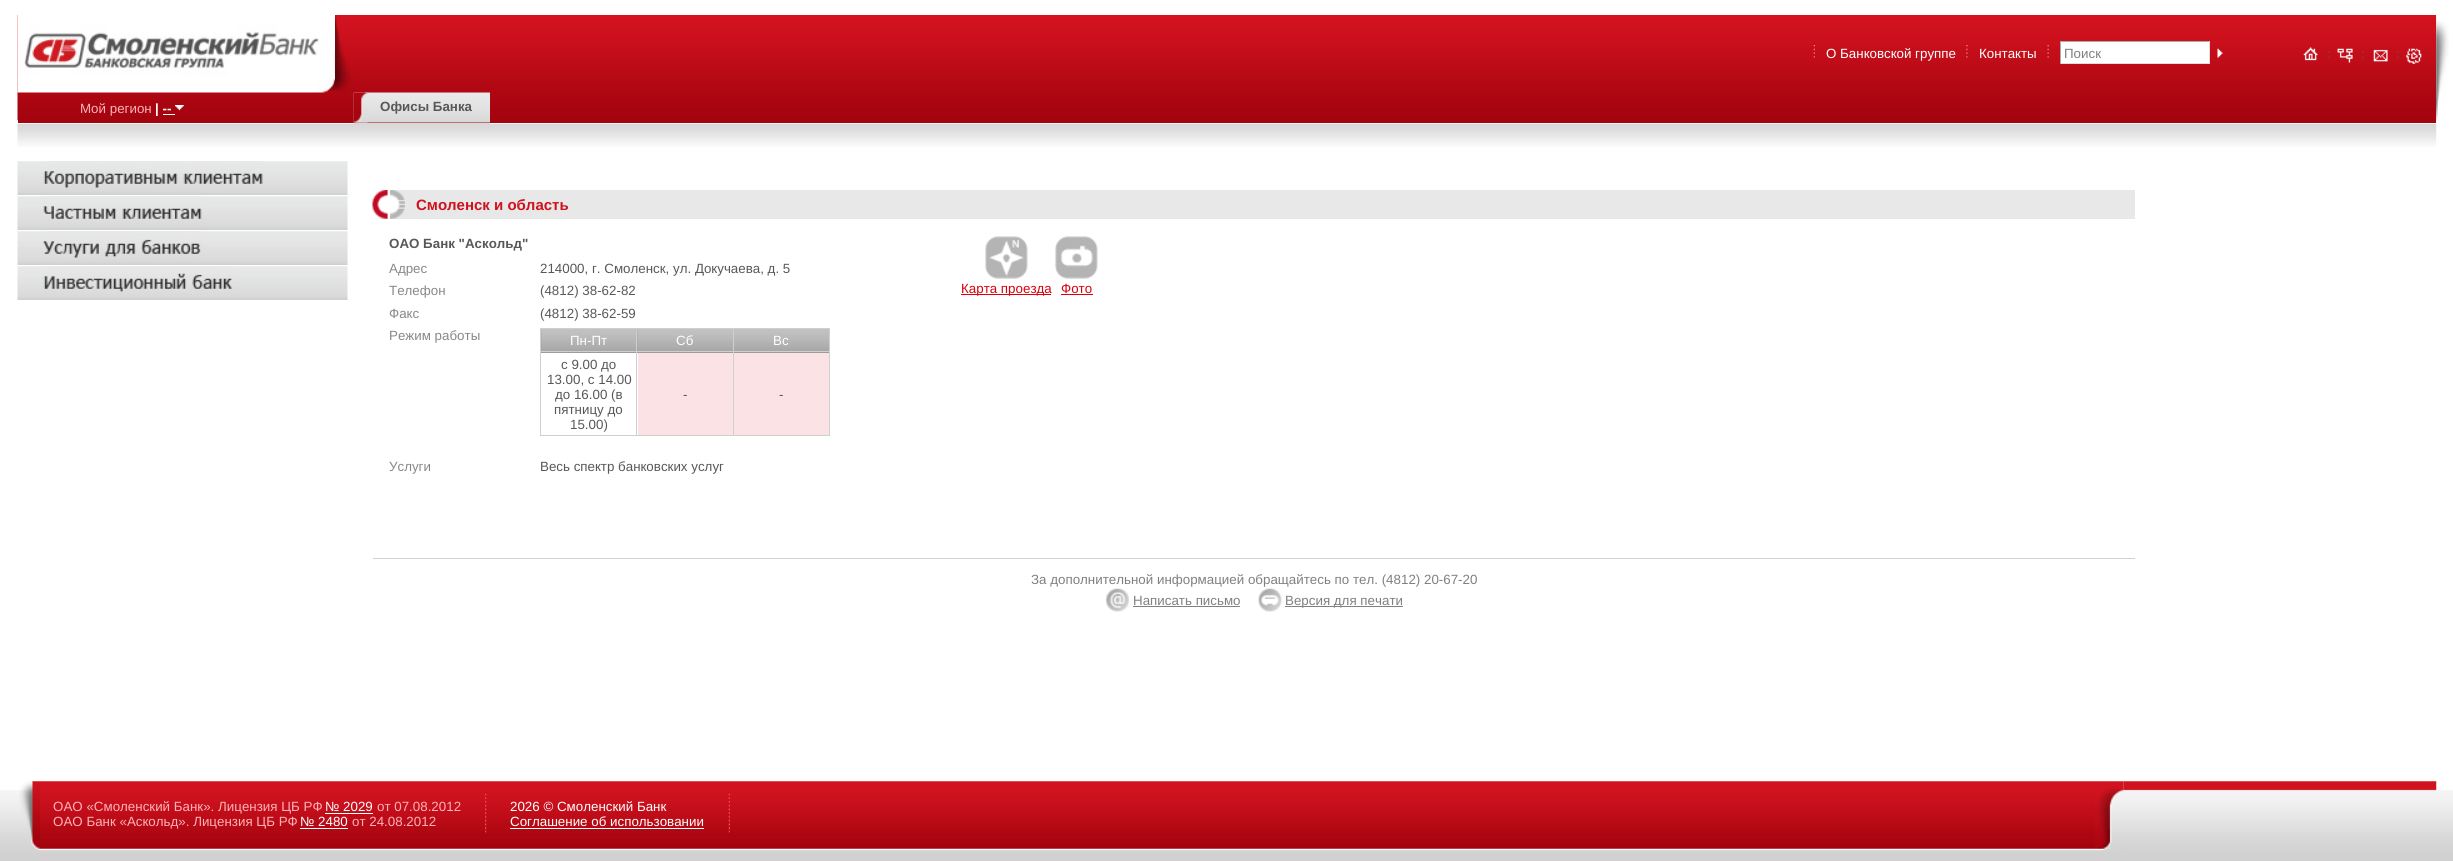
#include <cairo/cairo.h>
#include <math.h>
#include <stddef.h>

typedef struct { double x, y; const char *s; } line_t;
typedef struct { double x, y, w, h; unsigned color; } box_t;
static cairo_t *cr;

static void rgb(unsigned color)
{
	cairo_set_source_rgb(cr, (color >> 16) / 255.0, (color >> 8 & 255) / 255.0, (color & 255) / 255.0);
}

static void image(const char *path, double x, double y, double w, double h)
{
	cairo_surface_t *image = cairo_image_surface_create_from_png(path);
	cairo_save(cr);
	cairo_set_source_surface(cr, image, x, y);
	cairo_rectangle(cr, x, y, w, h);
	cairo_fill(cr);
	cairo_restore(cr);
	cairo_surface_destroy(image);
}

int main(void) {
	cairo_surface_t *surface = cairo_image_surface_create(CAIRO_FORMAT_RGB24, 2453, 861);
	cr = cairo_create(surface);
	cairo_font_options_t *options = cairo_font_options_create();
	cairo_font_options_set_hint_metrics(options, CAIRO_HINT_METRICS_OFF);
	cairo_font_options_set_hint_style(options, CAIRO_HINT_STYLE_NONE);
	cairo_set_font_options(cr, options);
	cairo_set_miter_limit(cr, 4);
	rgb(0xffffff);
	cairo_paint(cr);
	image("img/1.png", 0, 790, 2453, 71);
	rgb(0xa2050e);
	cairo_rectangle(cr, 18, 120, 2418, 3);
	cairo_fill(cr);
	image("img/2.png", 17, 15, 2420, 105);
	image("img/3.png", 17, 15, 318, 78);
	image("img/14.png", 353, 92, 137, 31);
	image("img/15.png", 353, 92, 15, 31);
	image("img/4.png", 335, 15, 19, 78);
	image("img/5.png", 1813, 45, 2, 13);
	image("img/6.png", 1966, 45, 2, 13);
	image("img/7.png", 2047, 45, 2, 13);
	{
		static const box_t items[] = {
			{2061, 42, 148, 21, 0xffffff},
			{2060, 41, 150, 1, 0xaaaaaa},
			{2209, 41, 1, 23, 0xdddddd},
			{2060, 63, 150, 1, 0xdddddd},
			{2060, 41, 1, 23, 0xaaaaaa},
		};
		for (size_t i = 0; i < sizeof items / sizeof *items; i++) {
			rgb(items[i].color);
			cairo_rectangle(cr, items[i].x, items[i].y, items[i].w, items[i].h);
			cairo_fill(cr);
		}
	}
	image("img/8.png", 2217, 48, 6, 10);
	image("img/9.png", 2303, 47, 15, 14);
	image("img/10.png", 2337, 48, 16, 15);
	image("img/11.png", 2373, 49, 15, 13);
	image("img/12.png", 2406, 48, 16, 16);
	image("img/13.png", 175, 105, 9, 6);
	rgb(0xffffff);
	cairo_rectangle(cr, 163, 114, 12, 1);
	cairo_fill(cr);
	image("img/17.png", 17, 123, 2420, 24);
	rgb(0xd8d8d8);
	cairo_rectangle(cr, 354, 123, 136, 1);
	cairo_fill(cr);
	image("img/16.png", 2436, 15, 13, 106);
	image("img/18.png", 17, 161, 331, 34);
	image("img/19.png", 43, 161, 220, 27);
	image("img/18.png", 17, 196, 331, 34);
	image("img/20.png", 43, 196, 159, 23);
	image("img/18.png", 17, 231, 331, 34);
	image("img/21.png", 43, 231, 158, 27);
	image("img/18.png", 17, 266, 331, 34);
	image("img/22.png", 43, 266, 190, 26);
	rgb(0xe8e8e8);
	cairo_rectangle(cr, 373, 190, 1762, 29);
	cairo_fill(cr);
	image("img/23.png", 372, 190, 33, 29);
	rgb(0x959595);
	cairo_rectangle(cr, 541, 329, 97, 24);
	cairo_fill(cr);
	image("img/24.png", 541, 329, 97, 24);
	rgb(0xcfcfcf);
	cairo_rectangle(cr, 733, 328, 97, 1);
	cairo_fill(cr);
	rgb(0x959595);
	cairo_rectangle(cr, 638, 352, 95, 1);
	cairo_fill(cr);
	image("img/25.png", 637, 329, 96, 24);
	cairo_rectangle(cr, 734, 352, 95, 1);
	cairo_fill(cr);
	image("img/26.png", 734, 329, 95, 24);
	{
		static const box_t items[] = {
			{733, 351, 97, 1, 0xcfcfcf},
			{829, 351, 1, 85, 0xcfcfcf},
			{733, 435, 97, 1, 0xcfcfcf},
			{733, 351, 1, 85, 0xcfcfcf},
			{636, 351, 98, 1, 0xcfcfcf},
			{733, 328, 1, 25, 0xcfcfcf},
			{636, 328, 98, 1, 0xcfcfcf},
			{636, 435, 98, 1, 0xcfcfcf},
			{636, 351, 1, 85, 0xcfcfcf},
			{540, 351, 98, 1, 0xcfcfcf},
			{636, 328, 1, 25, 0xcfcfcf},
			{540, 328, 98, 1, 0xcfcfcf},
			{540, 435, 98, 1, 0xcfcfcf},
			{540, 351, 1, 85, 0xcfcfcf},
			{540, 328, 1, 25, 0xcfcfcf},
			{829, 328, 1, 25, 0xcfcfcf},
			{638, 353, 95, 82, 0xfbe2e4},
			{734, 353, 95, 82, 0xfbe2e4},
		};
		for (size_t i = 0; i < sizeof items / sizeof *items; i++) {
			rgb(items[i].color);
			cairo_rectangle(cr, items[i].x, items[i].y, items[i].w, items[i].h);
			cairo_fill(cr);
		}
	}
	image("img/27.png", 985, 236, 43, 43);
	rgb(0xda000d);
	cairo_rectangle(cr, 961, 294, 90, 1);
	cairo_fill(cr);
	image("img/28.png", 1055, 236, 43, 43);
	cairo_rectangle(cr, 1061, 294, 32, 1);
	cairo_fill(cr);
	rgb(0xd1d1d1);
	cairo_rectangle(cr, 373, 558, 1762, 1);
	cairo_fill(cr);
	image("img/29.png", 1106, 588, 23, 24);
	rgb(0x808080);
	cairo_rectangle(cr, 1133, 606, 107, 1);
	cairo_fill(cr);
	image("img/30.png", 1258, 588, 24, 24);
	cairo_rectangle(cr, 1285, 606, 118, 1);
	cairo_fill(cr);
	image("img/31.png", 19, 781, 21, 69);
	image("img/33.png", 2123, 781, 314, 10);
	image("img/32.png", 2095, 781, 29, 70);
	image("img/34.png", 40, 781, 2055, 70);
	rgb(0xffffff);
	cairo_rectangle(cr, 325, 813, 48, 1);
	cairo_fill(cr);
	cairo_rectangle(cr, 300, 828, 48, 1);
	cairo_fill(cr);
	image("img/35.png", 485, 793, 2, 40);
	cairo_rectangle(cr, 510, 828, 194, 1);
	cairo_fill(cr);
	image("img/36.png", 728, 793, 2, 40);
	cairo_select_font_face(cr, "Liberation Sans", CAIRO_FONT_SLANT_NORMAL, CAIRO_FONT_WEIGHT_NORMAL);
	cairo_set_font_size(cr, 13.35);
	cairo_move_to(cr, 1826, 58);
	cairo_show_text(cr, "О Банковской группе");
	cairo_move_to(cr, 1979, 58);
	cairo_show_text(cr, "Контакты");
	rgb(0x808080);
	cairo_move_to(cr, 2064, 58);
	cairo_show_text(cr, "Поиск");
	rgb(0x585858);
	{
		static const line_t items[] = {
			{2327, 58, ":"},
			{2361, 58, ":"},
			{2396, 58, ":"},
		};
		for (size_t i = 0; i < sizeof items / sizeof *items; i++) {
			cairo_move_to(cr, items[i].x, items[i].y);
			cairo_show_text(cr, items[i].s);
		}
	}
	rgb(0xffb2b6);
	cairo_move_to(cr, 80, 113);
	cairo_show_text(cr, "Мой регион");
	cairo_select_font_face(cr, "Liberation Sans", CAIRO_FONT_SLANT_NORMAL, CAIRO_FONT_WEIGHT_BOLD);
	rgb(0xffffff);
	cairo_move_to(cr, 155, 113);
	cairo_show_text(cr, "| --");
	rgb(0x585858);
	cairo_move_to(cr, 380, 111);
	cairo_show_text(cr, "Офисы Банка");
	cairo_set_font_size(cr, 15);
	rgb(0xcf121d);
	cairo_move_to(cr, 416, 210);
	cairo_show_text(cr, "Смоленск и область");
	cairo_set_font_size(cr, 13.35);
	rgb(0x585858);
	cairo_move_to(cr, 389, 248);
	cairo_show_text(cr, "ОАО Банк \"Аскольд\"");
	cairo_select_font_face(cr, "Liberation Sans", CAIRO_FONT_SLANT_NORMAL, CAIRO_FONT_WEIGHT_NORMAL);
	rgb(0x888888);
	cairo_move_to(cr, 389, 273);
	cairo_show_text(cr, "Адрес");
	rgb(0x585858);
	cairo_move_to(cr, 540, 273);
	cairo_show_text(cr, "214000, г. Смоленск, ул. Докучаева, д. 5");
	rgb(0x888888);
	cairo_move_to(cr, 389, 295);
	cairo_show_text(cr, "Телефон");
	rgb(0x585858);
	cairo_move_to(cr, 540, 295);
	cairo_show_text(cr, "(4812) 38-62-82");
	rgb(0x888888);
	cairo_move_to(cr, 389, 318);
	cairo_show_text(cr, "Факс");
	rgb(0x585858);
	cairo_move_to(cr, 540, 318);
	cairo_show_text(cr, "(4812) 38-62-59");
	rgb(0x888888);
	cairo_move_to(cr, 389, 340);
	cairo_show_text(cr, "Режим работы");
	rgb(0xffffff);
	{
		static const line_t items[] = {
			{570, 345, "Пн-Пт"},
			{676, 345, "Сб"},
			{773, 345, "Вс"},
		};
		for (size_t i = 0; i < sizeof items / sizeof *items; i++) {
			cairo_move_to(cr, items[i].x, items[i].y);
			cairo_show_text(cr, items[i].s);
		}
	}
	rgb(0x585858);
	{
		static const line_t items[] = {
			{561, 369, "с 9.00 до"},
			{547, 384, "13.00, с 14.00"},
			{555, 399, "до 16.00 (в"},
			{554, 414, "пятницу до"},
			{570, 429, "15.00)"},
			{683, 399, "-"},
			{779, 399, "-"},
		};
		for (size_t i = 0; i < sizeof items / sizeof *items; i++) {
			cairo_move_to(cr, items[i].x, items[i].y);
			cairo_show_text(cr, items[i].s);
		}
	}
	rgb(0x888888);
	cairo_move_to(cr, 389, 471);
	cairo_show_text(cr, "Услуги");
	rgb(0x585858);
	cairo_move_to(cr, 540, 471);
	cairo_show_text(cr, "Весь спектр банковских услуг");
	rgb(0xda000d);
	cairo_move_to(cr, 961, 293);
	cairo_show_text(cr, "Карта проезда");
	cairo_move_to(cr, 1061, 293);
	cairo_show_text(cr, "Фото");
	rgb(0x808080);
	{
		static const line_t items[] = {
			{1031, 584, "За дополнительной информацией обращайтесь по тел. (4812) 20-67-20"},
			{1133, 605, "Написать письмо"},
			{1285, 605, "Версия для печати"},
		};
		for (size_t i = 0; i < sizeof items / sizeof *items; i++) {
			cairo_move_to(cr, items[i].x, items[i].y);
			cairo_show_text(cr, items[i].s);
		}
	}
	rgb(0xffb2b6);
	cairo_move_to(cr, 53, 811);
	cairo_show_text(cr, "ОАО «Смоленский Банк». Лицензия ЦБ РФ");
	rgb(0xffffff);
	cairo_move_to(cr, 325, 811);
	cairo_show_text(cr, "№ 2029");
	rgb(0xffb2b6);
	cairo_move_to(cr, 377, 811);
	cairo_show_text(cr, "от 07.08.2012");
	cairo_move_to(cr, 53, 826);
	cairo_show_text(cr, "ОАО Банк «Аскольд». Лицензия ЦБ РФ");
	rgb(0xffffff);
	cairo_move_to(cr, 300, 826);
	cairo_show_text(cr, "№ 2480");
	rgb(0xffb2b6);
	cairo_move_to(cr, 352, 826);
	cairo_show_text(cr, "от 24.08.2012");
	rgb(0xffffff);
	cairo_move_to(cr, 510, 811);
	cairo_show_text(cr, "2026 © Смоленский Банк");
	cairo_move_to(cr, 510, 826);
	cairo_show_text(cr, "Соглашение об использовании");
	cairo_surface_write_to_png(surface, "page.png");
	cairo_font_options_destroy(options);
	cairo_destroy(cr);
	cairo_surface_destroy(surface);
	return 0;
}
